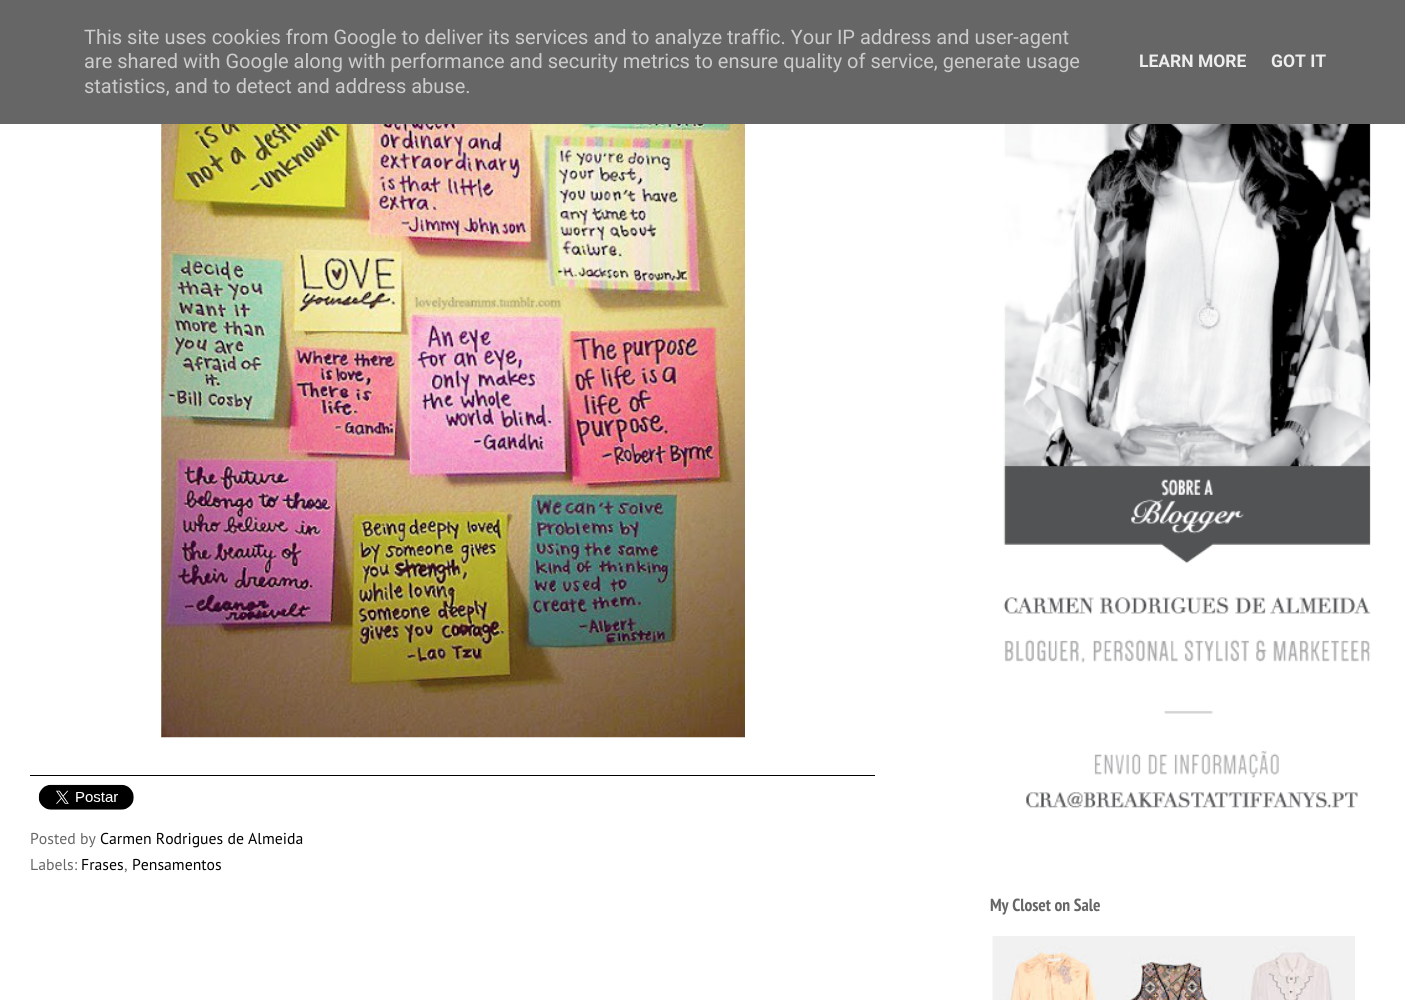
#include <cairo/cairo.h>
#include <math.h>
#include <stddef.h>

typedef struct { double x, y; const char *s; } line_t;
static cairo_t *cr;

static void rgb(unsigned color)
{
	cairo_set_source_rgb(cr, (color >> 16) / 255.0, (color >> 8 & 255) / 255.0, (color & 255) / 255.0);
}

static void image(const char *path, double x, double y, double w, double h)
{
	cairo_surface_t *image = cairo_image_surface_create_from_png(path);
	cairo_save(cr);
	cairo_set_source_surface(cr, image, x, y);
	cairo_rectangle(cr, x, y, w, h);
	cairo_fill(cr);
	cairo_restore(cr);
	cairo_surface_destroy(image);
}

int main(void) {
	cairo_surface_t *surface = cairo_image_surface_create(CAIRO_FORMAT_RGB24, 1405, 1000);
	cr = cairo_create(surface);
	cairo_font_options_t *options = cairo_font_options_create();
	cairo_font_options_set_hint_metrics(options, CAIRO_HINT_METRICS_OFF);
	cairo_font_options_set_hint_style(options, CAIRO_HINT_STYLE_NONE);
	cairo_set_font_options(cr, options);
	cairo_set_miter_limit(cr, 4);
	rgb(0xffffff);
	cairo_paint(cr);
	rgb(0x666666);
	cairo_rectangle(cr, 0, 0, 1405, 124);
	cairo_fill(cr);
	image("img/1.png", 161, 124, 584, 614);
	rgb(0x000000);
	cairo_rectangle(cr, 30, 775, 845, 1);
	cairo_fill(cr);
	image("img/2.png", 38, 784, 96, 26);
	image("img/3.png", 1003, 124, 368, 684);
	image("img/4.png", 992, 936, 363, 64);
	cairo_select_font_face(cr, "Roboto", CAIRO_FONT_SLANT_NORMAL, CAIRO_FONT_WEIGHT_NORMAL);
	cairo_set_font_size(cr, 20);
	rgb(0xcccccc);
	{
		static const line_t items[] = {
			{84, 44, "This site uses cookies from Google to deliver its services and to analyze traffic. Your IP address and user-agent"},
			{84, 68, "are shared with Google along with performance and security metrics to ensure quality of service, generate usage"},
			{84, 93, "statistics, and to detect and address abuse."},
		};
		for (size_t i = 0; i < sizeof items / sizeof *items; i++) {
			cairo_move_to(cr, items[i].x, items[i].y);
			cairo_show_text(cr, items[i].s);
		}
	}
	cairo_select_font_face(cr, "Roboto", CAIRO_FONT_SLANT_NORMAL, CAIRO_FONT_WEIGHT_BOLD);
	cairo_set_font_size(cr, 17.5);
	rgb(0xeeeeee);
	cairo_move_to(cr, 1139, 67);
	cairo_show_text(cr, "LEARN MORE");
	cairo_move_to(cr, 1271, 67);
	cairo_show_text(cr, "GOT IT");
	cairo_select_font_face(cr, "PT Sans", CAIRO_FONT_SLANT_NORMAL, CAIRO_FONT_WEIGHT_NORMAL);
	cairo_set_font_size(cr, 15.75);
	rgb(0x666666);
	cairo_move_to(cr, 30, 844);
	cairo_show_text(cr, "Posted by");
	rgb(0x000000);
	cairo_move_to(cr, 100, 844);
	cairo_show_text(cr, "Carmen Rodrigues de Almeida");
	rgb(0x666666);
	cairo_move_to(cr, 30, 870);
	cairo_show_text(cr, "Labels:");
	rgb(0x000000);
	cairo_move_to(cr, 81, 870);
	cairo_show_text(cr, "Frases");
	rgb(0x666666);
	cairo_move_to(cr, 124, 870);
	cairo_show_text(cr, ",");
	rgb(0x000000);
	cairo_move_to(cr, 132, 870);
	cairo_show_text(cr, "Pensamentos");
	cairo_select_font_face(cr, "PT Sans Narrow", CAIRO_FONT_SLANT_NORMAL, CAIRO_FONT_WEIGHT_BOLD);
	cairo_set_font_size(cr, 17.5);
	rgb(0x666666);
	cairo_move_to(cr, 990, 911);
	cairo_show_text(cr, "My Closet on Sale");
	cairo_surface_write_to_png(surface, "page.png");
	cairo_font_options_destroy(options);
	cairo_destroy(cr);
	cairo_surface_destroy(surface);
	return 0;
}
